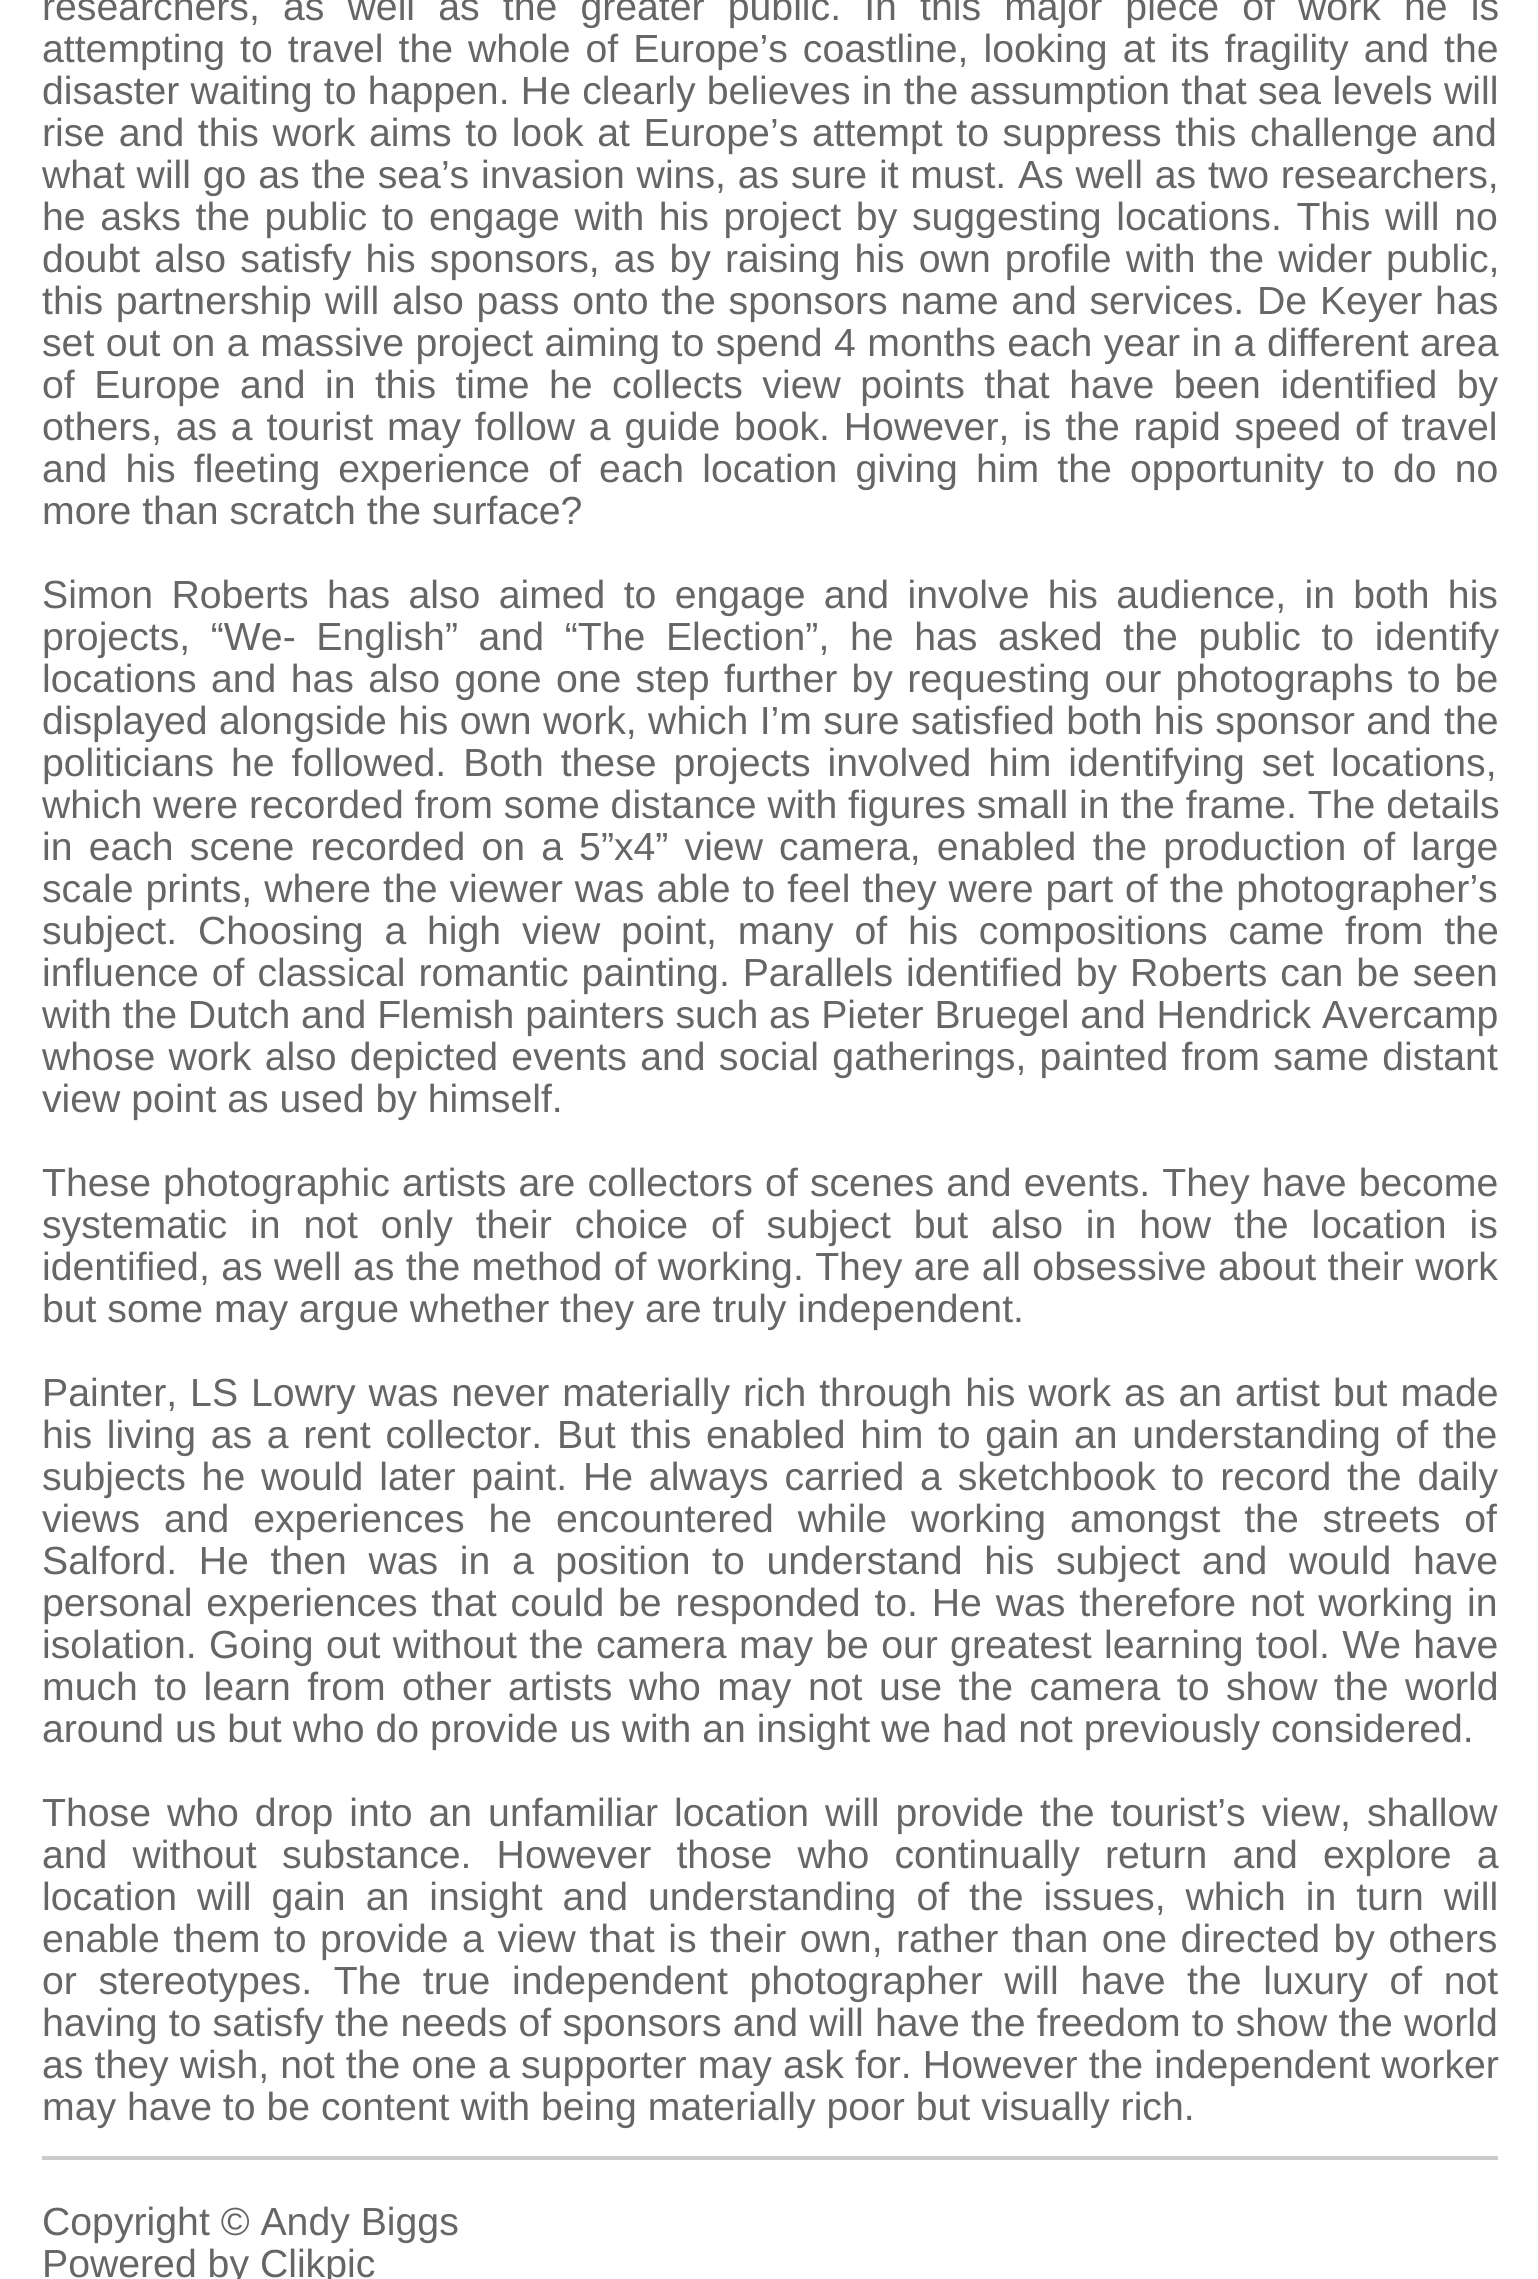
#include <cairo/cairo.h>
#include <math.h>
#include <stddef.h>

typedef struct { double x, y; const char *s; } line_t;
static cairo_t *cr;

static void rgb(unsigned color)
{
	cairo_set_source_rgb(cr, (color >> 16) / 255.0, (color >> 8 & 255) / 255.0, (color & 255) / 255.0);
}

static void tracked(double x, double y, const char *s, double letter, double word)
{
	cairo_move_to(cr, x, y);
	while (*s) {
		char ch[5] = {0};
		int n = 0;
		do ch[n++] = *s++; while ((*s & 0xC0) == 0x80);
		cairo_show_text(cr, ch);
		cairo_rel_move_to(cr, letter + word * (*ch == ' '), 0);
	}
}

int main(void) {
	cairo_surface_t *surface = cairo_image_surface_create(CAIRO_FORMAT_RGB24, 1538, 2279);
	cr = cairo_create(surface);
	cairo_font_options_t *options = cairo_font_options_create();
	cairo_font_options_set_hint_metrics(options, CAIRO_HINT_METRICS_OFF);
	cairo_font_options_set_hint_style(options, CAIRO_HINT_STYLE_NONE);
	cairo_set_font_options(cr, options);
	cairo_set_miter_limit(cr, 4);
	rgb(0xffffff);
	cairo_paint(cr);
	rgb(0xcccccc);
	cairo_rectangle(cr, 42, 2156, 1456, 4);
	cairo_fill(cr);
	cairo_select_font_face(cr, "Liberation Sans", CAIRO_FONT_SLANT_NORMAL, CAIRO_FONT_WEIGHT_NORMAL);
	cairo_set_font_size(cr, 39.2);
	rgb(0x666666);
	tracked(42, 20, "researchers, as well as the greater public. In this major piece of work he is", 0, 12.25);
	tracked(42, 62, "attempting to travel the whole of Europe’s coastline, looking at its fragility and the", 0, 4.1);
	tracked(42, 104, "disaster waiting to happen. He clearly believes in the assumption that sea levels will", 0, 0.4);
	tracked(42, 146, "rise and this work aims to look at Europe’s attempt to suppress this challenge and", 0, 2.75);
	tracked(42, 188, "what will go as the sea’s invasion wins, as sure it must. As well as two researchers,", 0, 0.9);
	tracked(42, 230, "he asks the public to engage with his project by suggesting locations. This will no", 0, 3.75);
	tracked(42, 272, "doubt also satisfy his sponsors, as by raising his own profile with the wider public,", 0, 3.25);
	tracked(42, 314, "this partnership will also pass onto the sponsors name and services.", 0, 1.9);
	tracked(1257, 314, "De Keyer has", 0, 1.9);
	tracked(42, 356, "set out on a massive project aiming to spend 4 months each year in a different area", 0, 0.6);
	tracked(42, 398, "of Europe and in this time he collects view points that have been identified by", 0, 8.6);
	tracked(42, 440, "others, as a tourist may follow a guide book. However, is the rapid speed of travel", 0, 2.9);
	tracked(42, 482, "and his fleeting experience of each location giving him the opportunity to do no", 0, 7.25);
	cairo_move_to(cr, 42, 524);
	cairo_show_text(cr, "more than scratch the surface?");
	tracked(42, 608, "Simon Roberts has also aimed to engage and involve his audience, in both his", 0, 7.4);
	tracked(42, 650, "projects, “We- English” and “The Election”, he has asked the public to identify", 0, 9.75);
	tracked(42, 692, "locations and has also gone one step further by requesting our photographs to be", 0, 3.4);
	tracked(42, 734, "displayed alongside his own work, which I’m sure satisfied both his sponsor and", 0, 0.5);
	cairo_move_to(cr, 1444, 734);
	cairo_show_text(cr, "the");
	tracked(42, 776, "politicians he followed. Both these projects involved him identifying set locations,", 0, 6);
	cairo_move_to(cr, 42, 818);
	cairo_show_text(cr, "which were recorded from some distance with figures small in the frame. The details");
	tracked(42, 860, "in each scene recorded on a 5”x4” view camera, enabled the production of large", 0, 5.25);
	tracked(42, 902, "scale prints, where the viewer was able to feel they were part of the photographer’s", 0, 1.1);
	cairo_move_to(cr, 42, 944);
	cairo_show_text(cr, "subject.");
	tracked(198, 944, "Choosing a high view point, many of his compositions came from the", 0, 9.9);
	tracked(42, 986, "influence of classical romantic painting. Parallels identified by Roberts can be seen", 0, 2);
	tracked(42, 1028, "with the Dutch and Flemish painters such as Pieter Bruegel and Hendrick Avercamp", 0, -0.1);
	tracked(42, 1070, "whose work also depicted events and social gatherings, painted from same distant", 0, 2.4);
	cairo_move_to(cr, 42, 1112);
	cairo_show_text(cr, "view point as used by himself.");
	tracked(42, 1196, "These photographic artists are collectors of scenes and events. They have become", 0, 1.25);
	tracked(42, 1238, "systematic in not only their choice of subject but also in how the location is", 0, 12);
	tracked(42, 1280, "identified, as well as the method of working. They are all obsessive about their work", 0, 0.5);
	tracked(42, 1322, "but some may argue whether they are truly independent.", 0, -0.1);
	tracked(42, 1406, "Painter, LS Lowry was never materially rich through his work as an artist but made", 0, 2.1);
	tracked(42, 1448, "his living as a rent collector. But this enabled him to gain an understanding of the", 0, 3.75);
	tracked(42, 1490, "subjects he would later paint. He always carried a sketchbook to record the daily", 0, 4.9);
	tracked(42, 1532, "views and experiences he encountered while working amongst the streets of", 0, 13);
	tracked(42, 1574, "Salford. He then was in a position to understand his subject and would have", 0, 10.75);
	tracked(42, 1616, "personal experiences that could be responded to. He was therefore not working in", 0, 2.9);
	tracked(42, 1658, "isolation. Going out without the camera may be our greatest learning tool. We have", 0, 1.4);
	tracked(42, 1700, "much to learn from other artists who may not use the camera to show the world", 0, 5.6);
	cairo_move_to(cr, 42, 1742);
	cairo_show_text(cr, "around us but who do provide us with an insight we had not previously considered.");
	tracked(42, 1826, "Those who drop into an unfamiliar location will provide the tourist’s view, shallow", 0, 5.1);
	tracked(42, 1868, "and without substance. However those who continually return and explore a", 0, 14.25);
	tracked(42, 1910, "location will gain an insight and understanding of the issues, which in turn will", 0, 9.1);
	tracked(42, 1952, "enable them to provide a view that is their own, rather than one directed by others", 0, 2.6);
	tracked(42, 1994, "or stereotypes. The true independent photographer will have the luxury of not", 0, 10.75);
	tracked(42, 2036, "having to satisfy the needs of sponsors and will have the freedom to show the world", 0, 0.3);
	tracked(42, 2078, "as they wish, not the one a supporter may ask for. However the independent worker", 0, 0.25);
	{
		static const line_t items[] = {
			{42, 2120, "may have to be content with being materially poor but visually rich."},
			{42, 2235, "Copyright © Andy Biggs"},
			{42, 2277, "Powered by Clikpic"},
		};
		for (size_t i = 0; i < sizeof items / sizeof *items; i++) {
			cairo_move_to(cr, items[i].x, items[i].y);
			cairo_show_text(cr, items[i].s);
		}
	}
	cairo_surface_write_to_png(surface, "page.png");
	cairo_font_options_destroy(options);
	cairo_destroy(cr);
	cairo_surface_destroy(surface);
	return 0;
}
